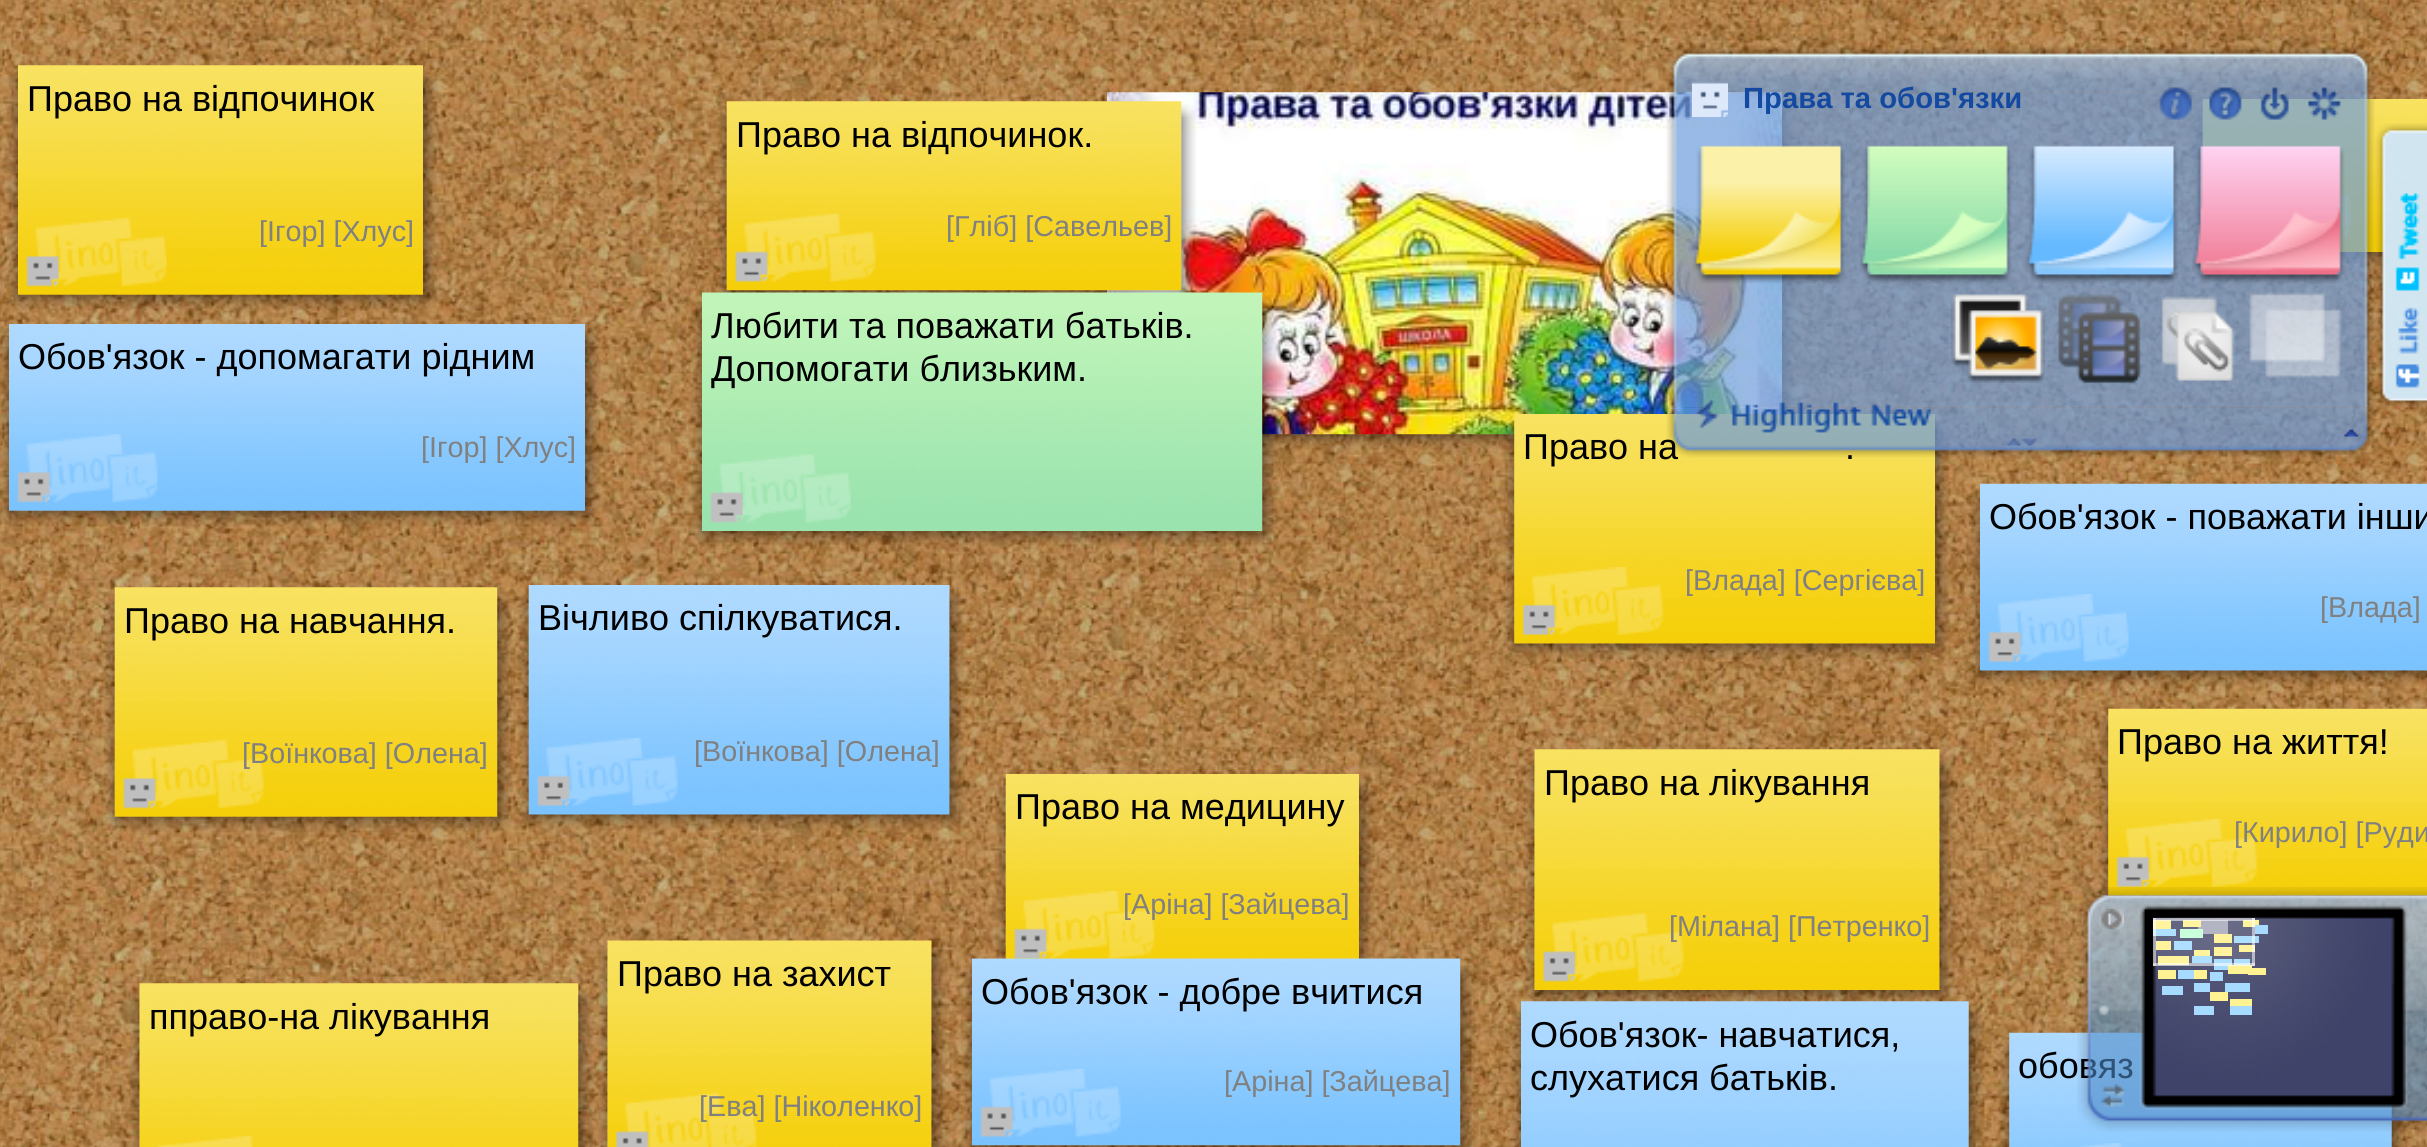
#include <cairo/cairo.h>
#include <math.h>
#include <stddef.h>

typedef struct { double x, y; const char *s; } line_t;
static cairo_t *cr;

static void rgb(unsigned color)
{
	cairo_set_source_rgb(cr, (color >> 16) / 255.0, (color >> 8 & 255) / 255.0, (color & 255) / 255.0);
}

static void image(const char *path, double x, double y, double w, double h)
{
	cairo_surface_t *image = cairo_image_surface_create_from_png(path);
	cairo_save(cr);
	cairo_set_source_surface(cr, image, x, y);
	cairo_rectangle(cr, x, y, w, h);
	cairo_fill(cr);
	cairo_restore(cr);
	cairo_surface_destroy(image);
}

int main(void) {
	cairo_surface_t *surface = cairo_image_surface_create(CAIRO_FORMAT_RGB24, 2427, 1147);
	cr = cairo_create(surface);
	cairo_font_options_t *options = cairo_font_options_create();
	cairo_font_options_set_hint_metrics(options, CAIRO_HINT_METRICS_OFF);
	cairo_font_options_set_hint_style(options, CAIRO_HINT_STYLE_NONE);
	cairo_set_font_options(cr, options);
	cairo_set_miter_limit(cr, 4);
	rgb(0xffffff);
	cairo_paint(cr);
	image("img/1.png", 0, 0, 2427, 1147);
	image("img/2.png", 7, 70, 11, 14);
	image("img/3.png", 18, 65, 405, 230);
	image("img/4.png", 423, 68, 15, 16);
	image("img/5.png", 7, 83, 11, 212);
	image("img/6.png", 423, 83, 15, 212);
	image("img/7.png", 7, 294, 11, 16);
	image("img/8.png", 18, 294, 405, 16);
	image("img/9.png", 423, 294, 15, 16);
	image("img/11.png", 35, 218, 132, 69);
	image("img/10.png", 26, 256, 34, 31);
	image("img/12.png", 716, 106, 11, 14);
	image("img/15.png", 716, 119, 11, 172);
	image("img/17.png", 716, 290, 11, 3);
	image("img/22.png", 1099, 96, 8, 6);
	image("img/23.png", 1107, 92, 675, 343);
	image("img/25.png", 1096, 290, 11, 3);
	image("img/13.png", 726, 101, 456, 190);
	image("img/14.png", 1181, 104, 15, 16);
	image("img/16.png", 1181, 119, 15, 172);
	image("img/19.png", 1181, 290, 16, 3);
	image("img/18.png", 726, 290, 456, 3);
	image("img/21.png", 744, 213, 132, 69);
	image("img/20.png", 735, 251, 33, 31);
	image("img/24.png", 1782, 95, 15, 16);
	image("img/26.png", 1782, 110, 15, 304);
	image("img/27.png", 1262, 434, 253, 15);
	image("img/28.png", 2192, 103, 11, 14);
	image("img/30.png", 2192, 117, 11, 135);
	image("img/29.png", 2202, 99, 225, 153);
	image("img/31.png", 2192, 252, 11, 15);
	image("img/32.png", 2203, 252, 181, 15);
	image("img/33.png", 2339, 193, 13, 48);
	image("img/34.png", 0, 328, 9, 14);
	image("img/35.png", 9, 324, 576, 187);
	image("img/36.png", 585, 327, 15, 15);
	image("img/37.png", 0, 342, 9, 169);
	image("img/38.png", 585, 342, 15, 169);
	image("img/39.png", 0, 510, 9, 16);
	image("img/40.png", 9, 510, 576, 16);
	image("img/41.png", 585, 510, 15, 16);
	image("img/43.png", 26, 434, 132, 69);
	image("img/42.png", 17, 472, 34, 31);
	image("img/44.png", 691, 297, 11, 14);
	image("img/45.png", 702, 292, 561, 239);
	image("img/46.png", 1262, 295, 15, 16);
	image("img/47.png", 691, 310, 11, 221);
	image("img/48.png", 1262, 310, 15, 221);
	image("img/49.png", 692, 531, 10, 14);
	image("img/51.png", 1262, 531, 16, 15);
	image("img/50.png", 702, 531, 561, 15);
	image("img/53.png", 719, 454, 132, 69);
	image("img/52.png", 710, 492, 33, 31);
	image("img/54.png", 1504, 418, 11, 14);
	image("img/57.png", 1504, 432, 11, 212);
	image("img/59.png", 1504, 643, 11, 15);
	image("img/55.png", 1514, 414, 421, 230);
	image("img/56.png", 1935, 417, 15, 15);
	image("img/58.png", 1935, 432, 15, 212);
	image("img/60.png", 1514, 643, 421, 16);
	image("img/61.png", 1935, 643, 15, 16);
	image("img/63.png", 1531, 567, 133, 68);
	image("img/62.png", 1522, 604, 34, 32);
	image("img/64.png", 1970, 488, 10, 14);
	image("img/65.png", 1980, 483, 447, 188);
	image("img/66.png", 1969, 501, 11, 170);
	image("img/67.png", 1969, 670, 11, 15);
	image("img/68.png", 1980, 670, 447, 16);
	image("img/70.png", 1997, 594, 132, 68);
	image("img/69.png", 1988, 631, 34, 32);
	image("img/71.png", 104, 591, 11, 15);
	image("img/74.png", 104, 605, 11, 212);
	image("img/76.png", 104, 816, 11, 15);
	image("img/72.png", 114, 587, 384, 230);
	image("img/73.png", 497, 590, 15, 16);
	image("img/75.png", 497, 605, 15, 212);
	image("img/78.png", 497, 816, 15, 16);
	image("img/77.png", 114, 816, 384, 16);
	image("img/80.png", 132, 740, 132, 69);
	image("img/79.png", 123, 778, 33, 31);
	image("img/81.png", 518, 589, 11, 14);
	image("img/84.png", 518, 603, 11, 212);
	image("img/86.png", 518, 814, 11, 15);
	image("img/82.png", 528, 585, 422, 230);
	image("img/83.png", 949, 588, 15, 15);
	image("img/85.png", 949, 603, 16, 212);
	image("img/88.png", 949, 814, 16, 16);
	image("img/87.png", 528, 814, 422, 16);
	image("img/90.png", 546, 738, 132, 68);
	image("img/89.png", 537, 775, 33, 32);
	image("img/91.png", 995, 779, 11, 13);
	image("img/94.png", 995, 792, 11, 167);
	image("img/92.png", 1005, 774, 354, 185);
	image("img/93.png", 1359, 777, 15, 15);
	image("img/95.png", 1359, 792, 15, 167);
	image("img/97.png", 1023, 891, 132, 68);
	image("img/96.png", 1014, 928, 33, 31);
	image("img/98.png", 1524, 753, 11, 15);
	image("img/101.png", 1524, 767, 11, 223);
	image("img/99.png", 1534, 749, 406, 241);
	image("img/100.png", 1939, 752, 16, 16);
	image("img/102.png", 1939, 767, 16, 223);
	image("img/103.png", 1524, 990, 11, 12);
	image("img/105.png", 1939, 990, 16, 12);
	image("img/104.png", 1534, 990, 406, 12);
	image("img/107.png", 1552, 913, 132, 69);
	image("img/106.png", 1543, 951, 33, 31);
	image("img/108.png", 2099, 713, 10, 14);
	image("img/110.png", 2098, 726, 11, 170);
	image("img/111.png", 2098, 895, 11, 15);
	image("img/109.png", 2108, 708, 319, 188);
	image("img/112.png", 2108, 895, 319, 16);
	image("img/114.png", 2125, 819, 133, 68);
	image("img/113.png", 2116, 856, 34, 32);
	image("img/115.png", 129, 987, 11, 15);
	image("img/118.png", 129, 1001, 11, 146);
	image("img/116.png", 139, 983, 440, 164);
	image("img/117.png", 578, 987, 15, 15);
	image("img/119.png", 578, 1001, 15, 146);
	image("img/120.png", 157, 1136, 96, 11);
	image("img/121.png", 597, 945, 11, 14);
	image("img/124.png", 597, 958, 11, 189);
	image("img/122.png", 607, 940, 325, 207);
	image("img/123.png", 931, 944, 16, 15);
	image("img/125.png", 931, 958, 16, 189);
	image("img/127.png", 625, 1093, 132, 54);
	image("img/126.png", 616, 1131, 33, 16);
	image("img/128.png", 962, 963, 10, 14);
	image("img/129.png", 972, 958, 489, 188);
	image("img/130.png", 1460, 961, 15, 16);
	image("img/131.png", 961, 976, 11, 170);
	image("img/132.png", 1460, 976, 15, 170);
	image("img/133.png", 962, 1145, 10, 2);
	image("img/135.png", 1460, 1145, 16, 2);
	image("img/134.png", 972, 1145, 489, 2);
	image("img/137.png", 989, 1068, 132, 69);
	image("img/136.png", 980, 1106, 34, 31);
	image("img/138.png", 1510, 1005, 11, 15);
	image("img/139.png", 1521, 1001, 448, 146);
	image("img/140.png", 1968, 1004, 16, 16);
	image("img/141.png", 1510, 1019, 11, 128);
	image("img/142.png", 1968, 1019, 16, 128);
	image("img/143.png", 1999, 1037, 11, 14);
	image("img/146.png", 1999, 1050, 11, 97);
	image("img/144.png", 2009, 1032, 383, 115);
	image("img/145.png", 2402, 1040, 5, 11);
	image("img/147.png", 2391, 1051, 16, 96);
	image("img/148.png", 2080, 1143, 42, 4);
	image("img/149.png", 1666, 46, 709, 47);
	image("img/150.png", 1666, 92, 709, 316);
	image("img/152.png", 1692, 82, 36, 35);
	image("img/153.png", 2159, 87, 34, 33);
	image("img/154.png", 2209, 87, 33, 33);
	image("img/155.png", 2260, 87, 29, 33);
	image("img/156.png", 2308, 87, 33, 33);
	image("img/157.png", 1692, 145, 153, 139);
	image("img/158.png", 1859, 145, 153, 139);
	image("img/159.png", 2025, 145, 153, 139);
	image("img/160.png", 2192, 145, 153, 139);
	image("img/161.png", 1951, 294, 94, 89);
	image("img/162.png", 2058, 294, 83, 90);
	image("img/163.png", 2161, 296, 74, 85);
	image("img/164.png", 2249, 292, 92, 86);
	image("img/168.png", 2375, 123, 52, 286);
	image("img/172.png", 2133, 887, 294, 245);
	image("img/173.png", 2139, 904, 269, 206);
	rgb(0xfff293);
	cairo_rectangle(cr, 2153, 920, 18, 9);
	cairo_fill(cr);
	cairo_set_source_rgba(cr, 1, 1, 1, 0.5);
	cairo_rectangle(cr, 2198, 920, 30, 14);
	cairo_fill(cr);
	rgb(0xfff293);
	cairo_rectangle(cr, 2183, 920, 18, 7);
	cairo_fill(cr);
	cairo_rectangle(cr, 2243, 920, 16, 7);
	cairo_fill(cr);
	rgb(0xa6dbff);
	cairo_rectangle(cr, 2153, 929, 23, 7);
	cairo_fill(cr);
	rgb(0xc4ffd8);
	cairo_rectangle(cr, 2180, 929, 23, 9);
	cairo_fill(cr);
	rgb(0xfff293);
	cairo_rectangle(cr, 2214, 934, 18, 9);
	cairo_fill(cr);
	rgb(0xa6dbff);
	cairo_rectangle(cr, 2234, 936, 25, 7);
	cairo_fill(cr);
	rgb(0xfff293);
	cairo_rectangle(cr, 2156, 941, 15, 9);
	cairo_fill(cr);
	rgb(0xa6dbff);
	cairo_rectangle(cr, 2174, 941, 18, 9);
	cairo_fill(cr);
	rgb(0xfff293);
	cairo_rectangle(cr, 2194, 950, 16, 6);
	cairo_fill(cr);
	cairo_rectangle(cr, 2214, 947, 18, 9);
	cairo_fill(cr);
	cairo_rectangle(cr, 2239, 945, 16, 7);
	cairo_fill(cr);
	cairo_rectangle(cr, 2158, 956, 31, 9);
	cairo_fill(cr);
	rgb(0xa6dbff);
	cairo_rectangle(cr, 2192, 956, 20, 7);
	cairo_fill(cr);
	cairo_rectangle(cr, 2214, 959, 18, 11);
	cairo_fill(cr);
	cairo_rectangle(cr, 2234, 959, 16, 6);
	cairo_fill(cr);
	rgb(0xfff293);
	cairo_rectangle(cr, 2228, 965, 24, 9);
	cairo_fill(cr);
	cairo_set_source_rgba(cr, 1, 1, 1, 0.1);
	cairo_rectangle(cr, 2153, 918, 102, 48);
	cairo_fill(cr);
	cairo_set_source_rgba(cr, 1, 1, 1, 0.55);
	cairo_rectangle(cr, 2153, 918, 3, 48);
	cairo_fill(cr);
	cairo_rectangle(cr, 2153, 918, 102, 3);
	cairo_fill(cr);
	cairo_rectangle(cr, 2252, 918, 3, 48);
	cairo_fill(cr);
	cairo_rectangle(cr, 2153, 963, 102, 3);
	cairo_fill(cr);
	rgb(0xa6dbff);
	cairo_rectangle(cr, 2255, 925, 13, 9);
	cairo_fill(cr);
	rgb(0xfff293);
	cairo_rectangle(cr, 2158, 970, 18, 9);
	cairo_fill(cr);
	rgb(0xa6dbff);
	cairo_rectangle(cr, 2178, 970, 16, 9);
	cairo_fill(cr);
	rgb(0xfff293);
	cairo_rectangle(cr, 2194, 970, 13, 9);
	cairo_fill(cr);
	rgb(0xa6dbff);
	cairo_rectangle(cr, 2210, 972, 13, 9);
	cairo_fill(cr);
	rgb(0xfff293);
	cairo_rectangle(cr, 2248, 968, 18, 7);
	cairo_fill(cr);
	rgb(0xa6dbff);
	cairo_rectangle(cr, 2162, 986, 21, 9);
	cairo_fill(cr);
	cairo_rectangle(cr, 2194, 983, 16, 9);
	cairo_fill(cr);
	cairo_rectangle(cr, 2225, 983, 25, 9);
	cairo_fill(cr);
	rgb(0xfff293);
	cairo_rectangle(cr, 2210, 992, 18, 9);
	cairo_fill(cr);
	cairo_rectangle(cr, 2230, 999, 22, 7);
	cairo_fill(cr);
	rgb(0xa6dbff);
	cairo_rectangle(cr, 2194, 1006, 20, 9);
	cairo_fill(cr);
	cairo_rectangle(cr, 2230, 1006, 22, 9);
	cairo_fill(cr);
	cairo_select_font_face(cr, "Liberation Sans", CAIRO_FONT_SLANT_NORMAL, CAIRO_FONT_WEIGHT_NORMAL);
	cairo_set_font_size(cr, 36);
	rgb(0x000000);
	cairo_move_to(cr, 27, 111);
	cairo_show_text(cr, "Право на відпочинок");
	cairo_set_font_size(cr, 28.75);
	rgb(0x808080);
	cairo_move_to(cr, 259, 241);
	cairo_show_text(cr, "[Ігор] [Хлус]");
	cairo_set_font_size(cr, 36);
	rgb(0x000000);
	cairo_move_to(cr, 736, 147);
	cairo_show_text(cr, "Право на відпочинок.");
	cairo_set_font_size(cr, 28.75);
	rgb(0x808080);
	cairo_move_to(cr, 946, 236);
	cairo_show_text(cr, "[Гліб] [Савельев]");
	cairo_set_font_size(cr, 36);
	rgb(0x000000);
	cairo_move_to(cr, 18, 369);
	cairo_show_text(cr, "Обов'язок - допомагати рідним");
	cairo_set_font_size(cr, 28.75);
	rgb(0x808080);
	cairo_move_to(cr, 421, 457);
	cairo_show_text(cr, "[Ігор] [Хлус]");
	cairo_set_font_size(cr, 36);
	rgb(0x000000);
	{
		static const line_t items[] = {
			{711, 338, "Любити та поважати батьків."},
			{711, 381, "Допомогати близьким."},
			{1523, 459, "Право на"},
			{1845, 459, "."},
		};
		for (size_t i = 0; i < sizeof items / sizeof *items; i++) {
			cairo_move_to(cr, items[i].x, items[i].y);
			cairo_show_text(cr, items[i].s);
		}
	}
	cairo_set_font_size(cr, 28.75);
	rgb(0x808080);
	cairo_move_to(cr, 1685, 590);
	cairo_show_text(cr, "[Влада] [Сергієва]");
	cairo_set_font_size(cr, 36);
	rgb(0x000000);
	cairo_move_to(cr, 1989, 529);
	cairo_show_text(cr, "Обов'язок - поважати інши");
	cairo_set_font_size(cr, 28.75);
	rgb(0x808080);
	cairo_move_to(cr, 2320, 617);
	cairo_show_text(cr, "[Влада]");
	cairo_set_font_size(cr, 36);
	rgb(0x000000);
	cairo_move_to(cr, 124, 633);
	cairo_show_text(cr, "Право на навчання.");
	cairo_set_font_size(cr, 28.75);
	rgb(0x808080);
	cairo_move_to(cr, 242, 763);
	cairo_show_text(cr, "[Воїнкова] [Олена]");
	cairo_set_font_size(cr, 36);
	rgb(0x000000);
	cairo_move_to(cr, 538, 630);
	cairo_show_text(cr, "Вічливо спілкуватися.");
	cairo_set_font_size(cr, 28.75);
	rgb(0x808080);
	cairo_move_to(cr, 694, 761);
	cairo_show_text(cr, "[Воїнкова] [Олена]");
	cairo_set_font_size(cr, 36);
	rgb(0x000000);
	cairo_move_to(cr, 1015, 819);
	cairo_show_text(cr, "Право на медицину");
	cairo_set_font_size(cr, 28.75);
	rgb(0x808080);
	cairo_move_to(cr, 1123, 914);
	cairo_show_text(cr, "[Аріна] [Зайцева]");
	cairo_set_font_size(cr, 36);
	rgb(0x000000);
	cairo_move_to(cr, 1544, 795);
	cairo_show_text(cr, "Право на лікування");
	cairo_set_font_size(cr, 28.75);
	rgb(0x808080);
	cairo_move_to(cr, 1669, 936);
	cairo_show_text(cr, "[Мілана] [Петренко]");
	cairo_set_font_size(cr, 36);
	rgb(0x000000);
	cairo_move_to(cr, 2117, 754);
	cairo_show_text(cr, "Право на життя!");
	cairo_set_font_size(cr, 28.75);
	rgb(0x808080);
	cairo_move_to(cr, 2234, 842);
	cairo_show_text(cr, "[Кирило] [Руди");
	cairo_set_font_size(cr, 36);
	rgb(0x000000);
	cairo_move_to(cr, 149, 1029);
	cairo_show_text(cr, "пправо-на лікування");
	cairo_move_to(cr, 617, 986);
	cairo_show_text(cr, "Право на захист");
	cairo_set_font_size(cr, 28.75);
	rgb(0x808080);
	cairo_move_to(cr, 699, 1116);
	cairo_show_text(cr, "[Ева] [Ніколенко]");
	cairo_set_font_size(cr, 36);
	rgb(0x000000);
	cairo_move_to(cr, 981, 1004);
	cairo_show_text(cr, "Обов'язок - добре вчитися");
	cairo_set_font_size(cr, 28.75);
	rgb(0x808080);
	cairo_move_to(cr, 1224, 1091);
	cairo_show_text(cr, "[Аріна] [Зайцева]");
	cairo_set_font_size(cr, 36);
	rgb(0x000000);
	{
		static const line_t items[] = {
			{1530, 1047, "Обов'язок- навчатися,"},
			{1530, 1090, "слухатися батьків."},
			{2018, 1078, "обовяз"},
		};
		for (size_t i = 0; i < sizeof items / sizeof *items; i++) {
			cairo_move_to(cr, items[i].x, items[i].y);
			cairo_show_text(cr, items[i].s);
		}
	}
	image("img/151.png", 1666, 407, 709, 51);
	cairo_select_font_face(cr, "Liberation Sans", CAIRO_FONT_SLANT_NORMAL, CAIRO_FONT_WEIGHT_BOLD);
	cairo_set_font_size(cr, 29.25);
	rgb(0x1349a0);
	cairo_move_to(cr, 1743, 108);
	cairo_show_text(cr, "Права та обов'язки");
	image("img/165.png", 1696, 400, 236, 33);
	image("img/166.png", 2344, 429, 15, 9);
	image("img/167.png", 2006, 438, 31, 8);
	image("img/169.png", 2077, 887, 56, 245);
	image("img/170.png", 2101, 909, 23, 21);
	image("img/171.png", 2101, 1084, 23, 23);
	cairo_surface_write_to_png(surface, "page.png");
	cairo_font_options_destroy(options);
	cairo_destroy(cr);
	cairo_surface_destroy(surface);
	return 0;
}
